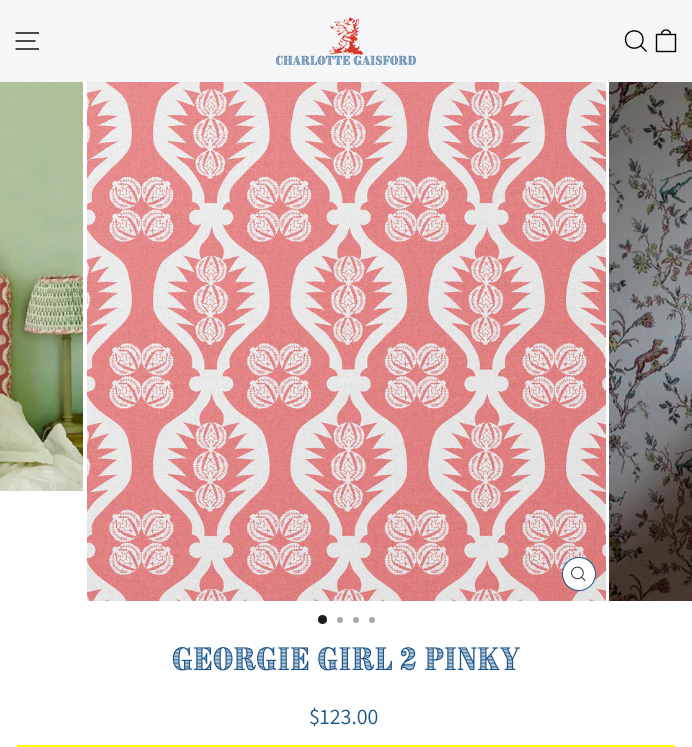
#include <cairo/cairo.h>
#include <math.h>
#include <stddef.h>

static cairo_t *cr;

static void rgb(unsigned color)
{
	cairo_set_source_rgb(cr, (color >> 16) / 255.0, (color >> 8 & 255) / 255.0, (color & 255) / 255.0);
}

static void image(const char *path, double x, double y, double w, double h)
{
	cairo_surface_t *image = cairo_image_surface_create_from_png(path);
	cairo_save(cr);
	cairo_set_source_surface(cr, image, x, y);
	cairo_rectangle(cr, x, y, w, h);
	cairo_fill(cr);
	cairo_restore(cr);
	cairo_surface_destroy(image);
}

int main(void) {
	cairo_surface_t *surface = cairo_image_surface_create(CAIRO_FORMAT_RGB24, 692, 747);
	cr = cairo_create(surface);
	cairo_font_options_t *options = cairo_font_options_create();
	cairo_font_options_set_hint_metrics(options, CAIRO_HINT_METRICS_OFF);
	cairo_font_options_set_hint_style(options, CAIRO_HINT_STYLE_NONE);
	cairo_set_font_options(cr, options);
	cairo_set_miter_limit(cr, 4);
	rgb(0xffffff);
	cairo_paint(cr);
	rgb(0xf4f6f7);
	cairo_rectangle(cr, 0, 0, 692, 82);
	cairo_fill(cr);
	cairo_new_path(cr);
	cairo_move_to(cr, 15.5, 33);
	cairo_line_to(cr, 39, 33);
	cairo_move_to(cr, 15.5, 41);
	cairo_line_to(cr, 35.5, 41);
	cairo_move_to(cr, 15.5, 49);
	cairo_line_to(cr, 39, 49);
	rgb(0x000000);
	cairo_set_line_width(cr, 1.4);
	cairo_stroke(cr);
	image("img/1.png", 276, 17, 140, 48);
	cairo_new_path(cr);
	cairo_move_to(cr, 643, 39.5);
	cairo_curve_to(cr, 643, 51, 625.5, 51, 625.5, 39.5);
	cairo_curve_to(cr, 625.5, 28, 643, 28, 643, 39.5);
	cairo_close_path(cr);
	cairo_move_to(cr, 646.5, 51.5);
	cairo_line_to(cr, 640.5, 45.5);
	cairo_move_to(cr, 656.5, 34.5);
	cairo_line_to(cr, 675.5, 34.5);
	cairo_line_to(cr, 675.5, 51.5);
	cairo_line_to(cr, 656.5, 51.5);
	cairo_close_path(cr);
	cairo_move_to(cr, 661.5, 34.5);
	cairo_curve_to(cr, 661.5, 28.5, 670.5, 28.5, 670.5, 34.5);
	cairo_stroke(cr);
	image("img/2.png", 0, 82, 83, 409);
	image("img/3.png", 87, 82, 519, 519);
	rgb(0xffffff);
	cairo_arc(cr, 579, 574, 16.5, 0, 2 * M_PI);
	cairo_fill_preserve(cr);
	rgb(0x1b5588);
	cairo_set_line_width(cr, 1);
	cairo_stroke(cr);
	image("img/4.png", 571, 566, 15, 16);
	image("img/5.png", 609, 82, 83, 519);
	rgb(0x1c1d1d);
	cairo_arc(cr, 322.5, 619.5, 4.5, 0, 2 * M_PI);
	cairo_fill(cr);
	rgb(0xa4a5a5);
	cairo_arc(cr, 340, 620, 3, 0, 2 * M_PI);
	cairo_fill(cr);
	cairo_arc(cr, 356, 620, 3, 0, 2 * M_PI);
	cairo_fill(cr);
	cairo_arc(cr, 372, 620, 3, 0, 2 * M_PI);
	cairo_fill(cr);
	rgb(0xffff00);
	cairo_rectangle(cr, 17, 745, 658, 2);
	cairo_fill(cr);
	cairo_select_font_face(cr, "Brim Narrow", CAIRO_FONT_SLANT_NORMAL, CAIRO_FONT_WEIGHT_NORMAL);
	cairo_set_font_size(cr, 27.75);
	rgb(0x1b5588);
	cairo_move_to(cr, 172, 670);
	cairo_show_text(cr, "Georgie girl 2 pinky");
	cairo_select_font_face(cr, "Assistant", CAIRO_FONT_SLANT_NORMAL, CAIRO_FONT_WEIGHT_NORMAL);
	cairo_set_font_size(cr, 22);
	cairo_move_to(cr, 309, 724);
	cairo_show_text(cr, "$123.00");
	cairo_surface_write_to_png(surface, "page.png");
	cairo_font_options_destroy(options);
	cairo_destroy(cr);
	cairo_surface_destroy(surface);
	return 0;
}
